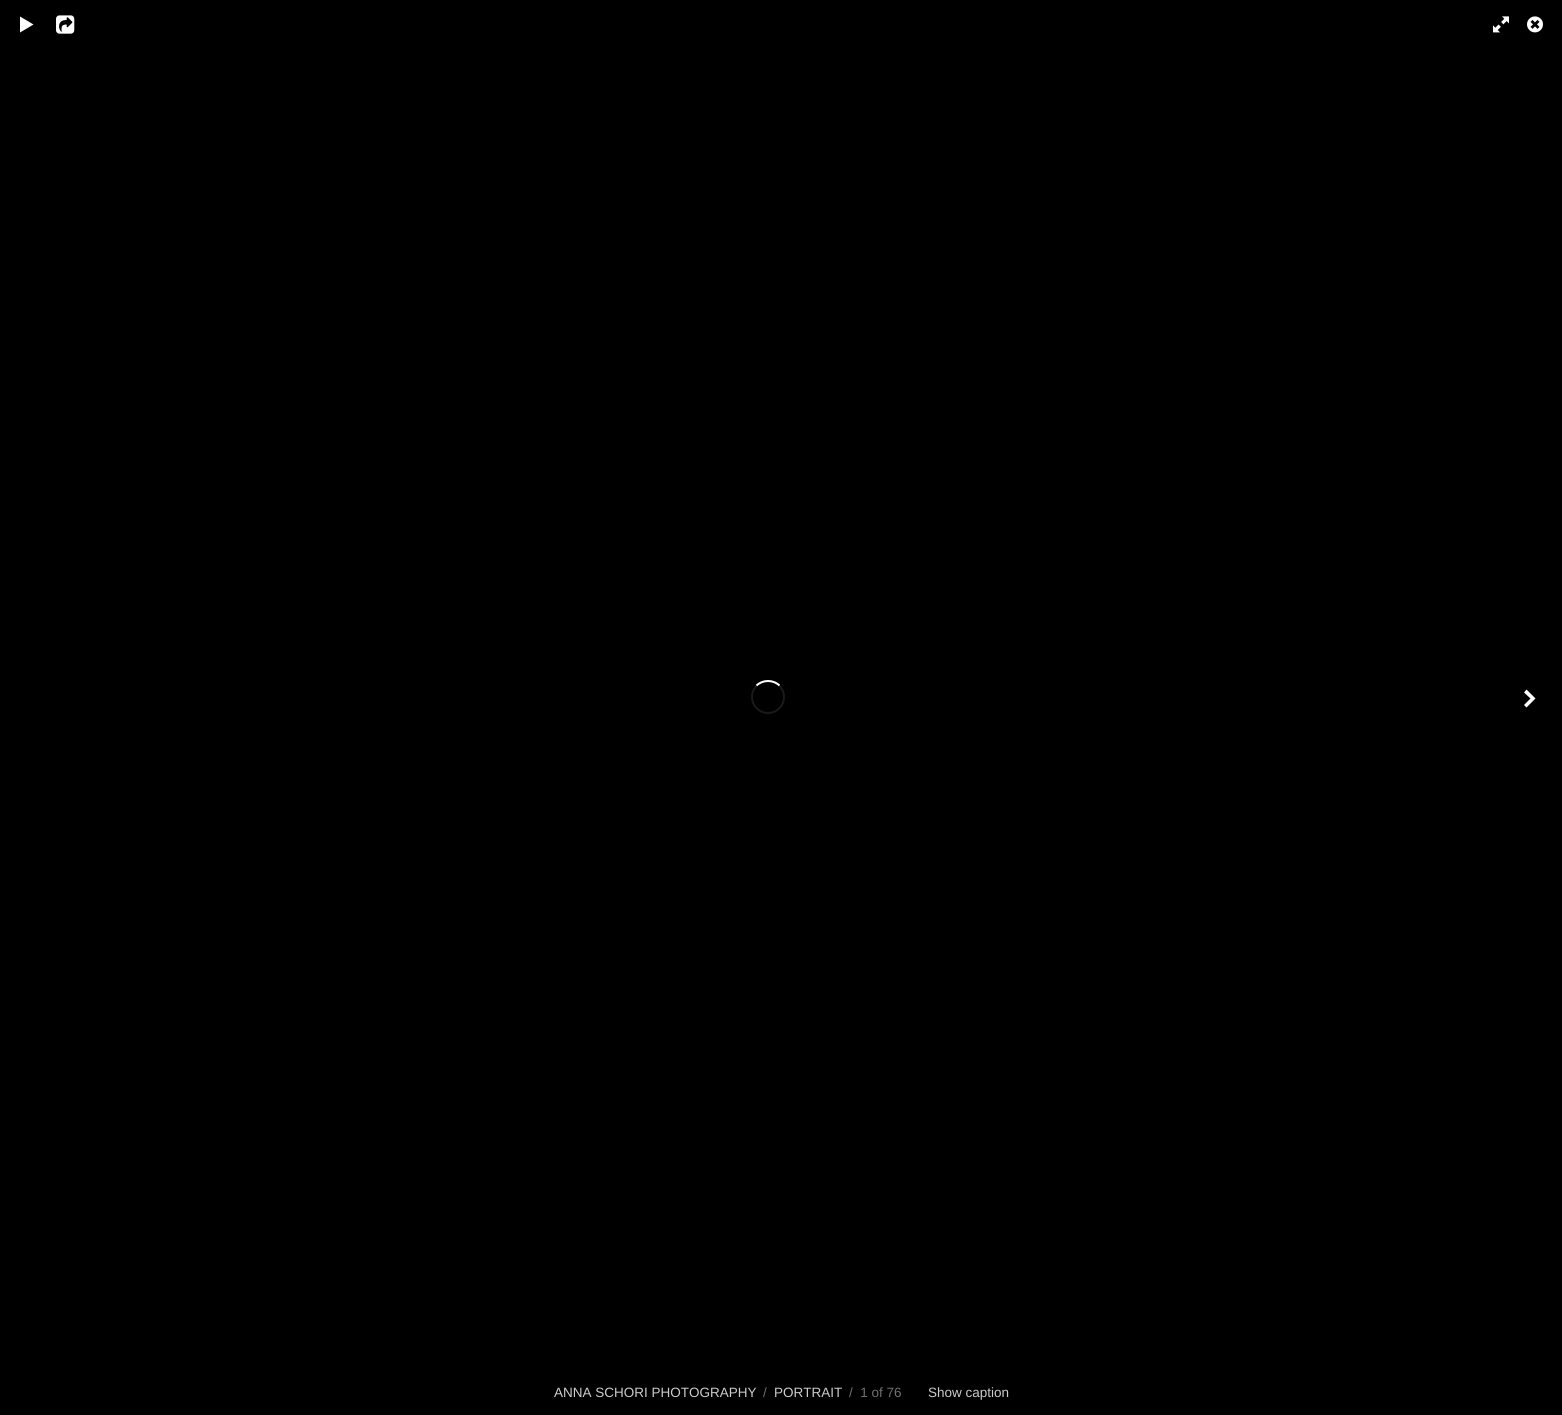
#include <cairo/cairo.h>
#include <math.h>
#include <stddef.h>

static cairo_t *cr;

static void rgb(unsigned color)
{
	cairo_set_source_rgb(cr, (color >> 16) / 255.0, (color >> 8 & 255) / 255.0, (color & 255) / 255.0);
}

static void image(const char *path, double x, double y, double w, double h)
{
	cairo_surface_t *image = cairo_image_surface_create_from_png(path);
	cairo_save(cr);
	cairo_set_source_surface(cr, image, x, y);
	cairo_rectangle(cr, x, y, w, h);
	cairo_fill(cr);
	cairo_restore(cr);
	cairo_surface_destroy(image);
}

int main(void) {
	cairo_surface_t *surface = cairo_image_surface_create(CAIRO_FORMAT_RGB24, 1562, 1415);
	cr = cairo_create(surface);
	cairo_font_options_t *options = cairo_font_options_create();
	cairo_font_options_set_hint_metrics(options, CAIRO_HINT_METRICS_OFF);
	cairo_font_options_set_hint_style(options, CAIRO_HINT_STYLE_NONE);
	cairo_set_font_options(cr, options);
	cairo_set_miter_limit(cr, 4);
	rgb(0x000000);
	cairo_paint(cr);
	rgb(0xffffff);
	cairo_new_path(cr);
	cairo_move_to(cr, 20, 32.5);
	cairo_line_to(cr, 20, 16.5);
	cairo_line_to(cr, 33.5, 24.5);
	cairo_close_path(cr);
	cairo_fill(cr);
	image("img/1.png", 56, 15, 19, 19);
	image("img/2.png", 1493, 16, 16, 17);
	image("img/3.png", 1527, 16, 16, 17);
	cairo_arc(cr, 768, 697, 16, 0, 2 * M_PI);
	rgb(0x1a1a1a);
	cairo_stroke(cr);
	cairo_new_path(cr);
	cairo_move_to(cr, 756.5, 685.5);
	cairo_curve_to(cr, 763, 679.5, 773, 679.5, 779.5, 685.5);
	rgb(0xffffff);
	cairo_stroke(cr);
	cairo_new_path(cr);
	cairo_move_to(cr, 1524, 705);
	cairo_line_to(cr, 1530.5, 698.5);
	cairo_line_to(cr, 1524, 692.5);
	cairo_line_to(cr, 1526.5, 689.5);
	cairo_line_to(cr, 1535.5, 698.5);
	cairo_line_to(cr, 1526.5, 707.5);
	cairo_close_path(cr);
	cairo_fill(cr);
	cairo_select_font_face(cr, "Liberation Sans", CAIRO_FONT_SLANT_NORMAL, CAIRO_FONT_WEIGHT_NORMAL);
	cairo_set_font_size(cr, 13.5);
	rgb(0xcccccc);
	cairo_move_to(cr, 554, 1397);
	cairo_show_text(cr, "ANNA SCHORI PHOTOGRAPHY");
	rgb(0x707070);
	cairo_move_to(cr, 763, 1397);
	cairo_show_text(cr, "/");
	rgb(0xcccccc);
	cairo_move_to(cr, 774, 1397);
	cairo_show_text(cr, "PORTRAIT");
	rgb(0x707070);
	cairo_move_to(cr, 849, 1397);
	cairo_show_text(cr, "/  1 of 76");
	rgb(0xcccccc);
	cairo_move_to(cr, 928, 1397);
	cairo_show_text(cr, "Show caption");
	cairo_surface_write_to_png(surface, "page.png");
	cairo_font_options_destroy(options);
	cairo_destroy(cr);
	cairo_surface_destroy(surface);
	return 0;
}
